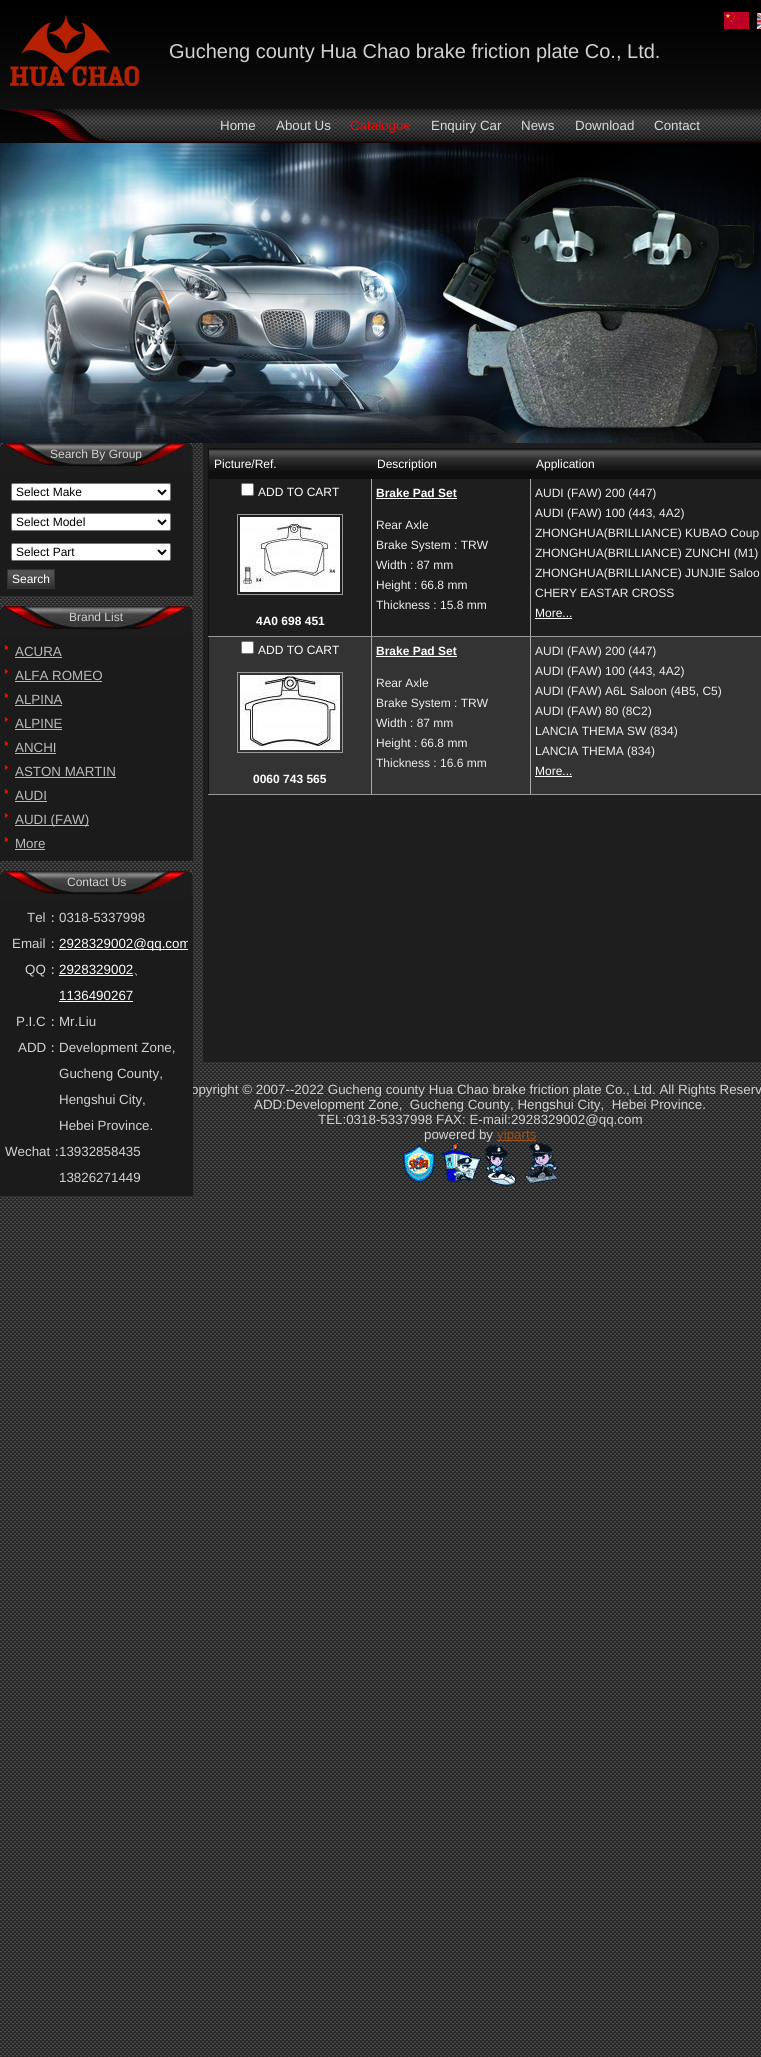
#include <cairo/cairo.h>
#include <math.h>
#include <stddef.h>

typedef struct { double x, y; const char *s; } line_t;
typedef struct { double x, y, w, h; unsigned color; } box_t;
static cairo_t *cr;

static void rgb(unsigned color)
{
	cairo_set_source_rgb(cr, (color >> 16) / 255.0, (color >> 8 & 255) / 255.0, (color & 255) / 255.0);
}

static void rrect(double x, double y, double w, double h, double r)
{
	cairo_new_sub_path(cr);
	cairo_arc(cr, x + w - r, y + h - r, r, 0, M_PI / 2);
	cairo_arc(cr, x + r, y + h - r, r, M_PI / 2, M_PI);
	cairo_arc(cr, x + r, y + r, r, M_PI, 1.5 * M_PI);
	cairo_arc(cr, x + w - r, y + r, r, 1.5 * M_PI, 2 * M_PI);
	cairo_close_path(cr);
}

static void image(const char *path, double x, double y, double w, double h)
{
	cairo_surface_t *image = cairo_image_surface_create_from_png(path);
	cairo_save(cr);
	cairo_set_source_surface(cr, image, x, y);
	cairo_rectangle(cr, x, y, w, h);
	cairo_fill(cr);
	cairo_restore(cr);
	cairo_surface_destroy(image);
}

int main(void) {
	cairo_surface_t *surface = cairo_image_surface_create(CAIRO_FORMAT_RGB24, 761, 2057);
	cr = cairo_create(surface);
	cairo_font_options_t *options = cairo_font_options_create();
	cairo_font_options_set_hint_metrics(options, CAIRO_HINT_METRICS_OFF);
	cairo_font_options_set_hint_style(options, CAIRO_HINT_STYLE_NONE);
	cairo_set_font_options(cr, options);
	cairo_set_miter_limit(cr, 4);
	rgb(0xffffff);
	cairo_paint(cr);
	image("img/1.png", 0, 526, 761, 1531);
	image("img/2.png", 0, 0, 761, 526);
	image("img/3.png", 10, 15, 129, 71);
	image("img/4.png", 724, 12, 25, 17);
	image("img/5.png", 757, 13, 4, 16);
	image("img/6.png", 0, 109, 117, 34);
	image("img/7.png", 117, 109, 644, 34);
	image("img/8.png", 0, 143, 761, 300);
	rgb(0x1b1b1b);
	cairo_rectangle(cr, 0, 472, 193, 124);
	cairo_fill(cr);
	image("img/9.png", 0, 443, 193, 29);
	rgb(0xffffff);
	rrect(11.5, 483.5, 159, 17, 1.5);
	cairo_fill_preserve(cr);
	rgb(0x767676);
	cairo_set_line_width(cr, 1);
	cairo_stroke(cr);
	cairo_new_path(cr);
	cairo_move_to(cr, 158, 490);
	cairo_line_to(cr, 162, 494);
	cairo_line_to(cr, 166, 490);
	rgb(0x000000);
	cairo_set_line_width(cr, 2);
	cairo_stroke(cr);
	rgb(0xffffff);
	rrect(11.5, 513.5, 159, 17, 1.5);
	cairo_fill_preserve(cr);
	rgb(0x767676);
	cairo_set_line_width(cr, 1);
	cairo_stroke(cr);
	cairo_new_path(cr);
	cairo_move_to(cr, 158, 520);
	cairo_line_to(cr, 162, 524);
	cairo_line_to(cr, 166, 520);
	rgb(0x000000);
	cairo_set_line_width(cr, 2);
	cairo_stroke(cr);
	rgb(0xffffff);
	rrect(11.5, 543.5, 159, 17, 1.5);
	cairo_fill_preserve(cr);
	rgb(0x767676);
	cairo_set_line_width(cr, 1);
	cairo_stroke(cr);
	cairo_new_path(cr);
	cairo_move_to(cr, 158, 550);
	cairo_line_to(cr, 162, 554);
	cairo_line_to(cr, 166, 550);
	rgb(0x000000);
	cairo_set_line_width(cr, 2);
	cairo_stroke(cr);
	image("img/10.png", 8, 570, 46, 18);
	cairo_rectangle(cr, 7.5, 569.5, 47, 19);
	rgb(0x333333);
	cairo_set_line_width(cr, 1);
	cairo_stroke(cr);
	rgb(0x1b1b1b);
	cairo_rectangle(cr, 0, 635, 193, 226);
	cairo_fill(cr);
	image("img/9.png", 0, 606, 193, 29);
	image("img/11.png", 5, 645, 3, 5);
	rgb(0xbbbbbb);
	cairo_rectangle(cr, 15, 657, 47, 1);
	cairo_fill(cr);
	image("img/11.png", 5, 669, 3, 5);
	cairo_rectangle(cr, 15, 681, 87, 1);
	cairo_fill(cr);
	image("img/11.png", 5, 693, 3, 5);
	cairo_rectangle(cr, 15, 705, 47, 1);
	cairo_fill(cr);
	image("img/11.png", 5, 717, 3, 5);
	cairo_rectangle(cr, 15, 729, 47, 1);
	cairo_fill(cr);
	image("img/11.png", 5, 741, 3, 5);
	cairo_rectangle(cr, 15, 753, 41, 1);
	cairo_fill(cr);
	image("img/11.png", 5, 765, 3, 5);
	cairo_rectangle(cr, 15, 777, 101, 1);
	cairo_fill(cr);
	image("img/11.png", 5, 789, 3, 5);
	cairo_rectangle(cr, 15, 801, 32, 1);
	cairo_fill(cr);
	image("img/11.png", 5, 813, 3, 5);
	cairo_rectangle(cr, 15, 825, 74, 1);
	cairo_fill(cr);
	image("img/11.png", 5, 837, 3, 5);
	cairo_rectangle(cr, 15, 849, 30, 1);
	cairo_fill(cr);
	image("img/9.png", 0, 871, 193, 29);
	{
		static const box_t items[] = {
			{203, 443, 558, 619, 0x1e1e1e},
			{208, 448, 553, 1, 0x111111},
			{208, 448, 1, 347, 0x111111},
		};
		for (size_t i = 0; i < sizeof items / sizeof *items; i++) {
			rgb(items[i].color);
			cairo_rectangle(cr, items[i].x, items[i].y, items[i].w, items[i].h);
			cairo_fill(cr);
		}
	}
	image("img/12.png", 209, 449, 163, 30);
	image("img/13.png", 372, 449, 159, 30);
	image("img/14.png", 531, 449, 230, 30);
	{
		static const box_t items[] = {
			{209, 637, 552, 157, 0x333333},
			{530, 794, 231, 1, 0x999999},
			{530, 636, 1, 159, 0xaaaaaa},
			{530, 636, 231, 1, 0x999999},
			{530, 479, 1, 158, 0xaaaaaa},
			{371, 794, 160, 1, 0x999999},
			{371, 636, 1, 159, 0xaaaaaa},
			{371, 636, 160, 1, 0x999999},
			{371, 479, 1, 158, 0xaaaaaa},
			{208, 636, 164, 1, 0x999999},
		};
		for (size_t i = 0; i < sizeof items / sizeof *items; i++) {
			rgb(items[i].color);
			cairo_rectangle(cr, items[i].x, items[i].y, items[i].w, items[i].h);
			cairo_fill(cr);
		}
	}
	rgb(0xffffff);
	rrect(241.5, 483.5, 12, 12, 1.5);
	cairo_fill_preserve(cr);
	rgb(0x767676);
	cairo_stroke(cr);
	cairo_rectangle(cr, 237.5, 514.5, 105, 80);
	rgb(0x999999);
	cairo_stroke(cr);
	image("img/15.png", 240, 517, 100, 75);
	{
		static const box_t items[] = {
			{376, 498, 81, 1, 0xffffff},
			{535, 618, 37, 1, 0xffffff},
			{208, 794, 164, 1, 0x999999},
		};
		for (size_t i = 0; i < sizeof items / sizeof *items; i++) {
			rgb(items[i].color);
			cairo_rectangle(cr, items[i].x, items[i].y, items[i].w, items[i].h);
			cairo_fill(cr);
		}
	}
	rgb(0xffffff);
	rrect(241.5, 641.5, 12, 12, 1.5);
	cairo_fill_preserve(cr);
	rgb(0x767676);
	cairo_stroke(cr);
	cairo_rectangle(cr, 237.5, 672.5, 105, 80);
	rgb(0x999999);
	cairo_stroke(cr);
	image("img/16.png", 240, 675, 100, 75);
	{
		static const box_t items[] = {
			{376, 656, 81, 1, 0xffffff},
			{535, 776, 37, 1, 0xffffff},
			{497, 1140, 39, 1, 0x944f1c},
		};
		for (size_t i = 0; i < sizeof items / sizeof *items; i++) {
			rgb(items[i].color);
			cairo_rectangle(cr, items[i].x, items[i].y, items[i].w, items[i].h);
			cairo_fill(cr);
		}
	}
	image("img/17.png", 403, 1142, 155, 44);
	cairo_select_font_face(cr, "Liberation Sans", CAIRO_FONT_SLANT_NORMAL, CAIRO_FONT_WEIGHT_NORMAL);
	cairo_set_font_size(cr, 20);
	rgb(0xd2d2d2);
	cairo_move_to(cr, 169, 58);
	cairo_show_text(cr, "Gucheng county Hua Chao brake friction plate Co., Ltd.");
	cairo_set_font_size(cr, 13.35);
	rgb(0xd8d8d8);
	cairo_move_to(cr, 220, 130);
	cairo_show_text(cr, "Home");
	cairo_move_to(cr, 276, 130);
	cairo_show_text(cr, "About Us");
	rgb(0xff0000);
	cairo_move_to(cr, 350, 130);
	cairo_show_text(cr, "Catalogue");
	rgb(0xd8d8d8);
	{
		static const line_t items[] = {
			{431, 130, "Enquiry Car"},
			{521, 130, "News"},
			{575, 130, "Download"},
			{654, 130, "Contact"},
		};
		for (size_t i = 0; i < sizeof items / sizeof *items; i++) {
			cairo_move_to(cr, items[i].x, items[i].y);
			cairo_show_text(cr, items[i].s);
		}
	}
	cairo_set_font_size(cr, 12);
	rgb(0xd2d2d2);
	cairo_move_to(cr, 50, 458);
	cairo_show_text(cr, "Search By Group");
	rgb(0x000000);
	{
		static const line_t items[] = {
			{16, 496, "Select Make"},
			{16, 526, "Select Model"},
			{16, 556, "Select Part"},
		};
		for (size_t i = 0; i < sizeof items / sizeof *items; i++) {
			cairo_move_to(cr, items[i].x, items[i].y);
			cairo_show_text(cr, items[i].s);
		}
	}
	rgb(0xffffff);
	cairo_move_to(cr, 12, 583);
	cairo_show_text(cr, "Search");
	rgb(0xd2d2d2);
	cairo_move_to(cr, 69, 621);
	cairo_show_text(cr, "Brand List");
	cairo_set_font_size(cr, 13.35);
	rgb(0xbbbbbb);
	{
		static const line_t items[] = {
			{15, 656, "ACURA"},
			{15, 680, "ALFA ROMEO"},
			{15, 704, "ALPINA"},
			{15, 728, "ALPINE"},
			{15, 752, "ANCHI"},
			{15, 776, "ASTON MARTIN"},
			{15, 800, "AUDI"},
			{15, 824, "AUDI (FAW)"},
			{15, 848, "More"},
		};
		for (size_t i = 0; i < sizeof items / sizeof *items; i++) {
			cairo_move_to(cr, items[i].x, items[i].y);
			cairo_show_text(cr, items[i].s);
		}
	}
	cairo_set_font_size(cr, 12);
	rgb(0xd2d2d2);
	cairo_move_to(cr, 67, 886);
	cairo_show_text(cr, "Contact Us");
	rgb(0xffffff);
	{
		static const line_t items[] = {
			{214, 468, "Picture/Ref."},
			{377, 468, "Description"},
			{536, 468, "Application"},
			{258, 496, "ADD TO CART"},
		};
		for (size_t i = 0; i < sizeof items / sizeof *items; i++) {
			cairo_move_to(cr, items[i].x, items[i].y);
			cairo_show_text(cr, items[i].s);
		}
	}
	cairo_select_font_face(cr, "Liberation Sans", CAIRO_FONT_SLANT_NORMAL, CAIRO_FONT_WEIGHT_BOLD);
	cairo_move_to(cr, 256, 625);
	cairo_show_text(cr, "4A0 698 451");
	cairo_move_to(cr, 376, 497);
	cairo_show_text(cr, "Brake Pad Set");
	cairo_select_font_face(cr, "Liberation Sans", CAIRO_FONT_SLANT_NORMAL, CAIRO_FONT_WEIGHT_NORMAL);
	rgb(0xeeeeee);
	{
		static const line_t items[] = {
			{376, 529, "Rear Axle"},
			{376, 549, "Brake System : TRW"},
			{376, 569, "Width : 87 mm"},
			{376, 589, "Height : 66.8 mm"},
			{376, 609, "Thickness : 15.8 mm"},
			{535, 497, "AUDI (FAW) 200 (447)"},
			{535, 517, "AUDI (FAW) 100 (443, 4A2)"},
			{535, 537, "ZHONGHUA(BRILLIANCE) KUBAO Coup"},
			{535, 557, "ZHONGHUA(BRILLIANCE) ZUNCHI (M1)"},
			{535, 577, "ZHONGHUA(BRILLIANCE) JUNJIE Saloo"},
			{535, 597, "CHERY EASTAR CROSS"},
		};
		for (size_t i = 0; i < sizeof items / sizeof *items; i++) {
			cairo_move_to(cr, items[i].x, items[i].y);
			cairo_show_text(cr, items[i].s);
		}
	}
	rgb(0xffffff);
	cairo_move_to(cr, 535, 617);
	cairo_show_text(cr, "More...");
	cairo_move_to(cr, 258, 654);
	cairo_show_text(cr, "ADD TO CART");
	cairo_select_font_face(cr, "Liberation Sans", CAIRO_FONT_SLANT_NORMAL, CAIRO_FONT_WEIGHT_BOLD);
	cairo_move_to(cr, 253, 783);
	cairo_show_text(cr, "0060 743 565");
	cairo_move_to(cr, 376, 655);
	cairo_show_text(cr, "Brake Pad Set");
	cairo_select_font_face(cr, "Liberation Sans", CAIRO_FONT_SLANT_NORMAL, CAIRO_FONT_WEIGHT_NORMAL);
	rgb(0xeeeeee);
	{
		static const line_t items[] = {
			{376, 687, "Rear Axle"},
			{376, 707, "Brake System : TRW"},
			{376, 727, "Width : 87 mm"},
			{376, 747, "Height : 66.8 mm"},
			{376, 767, "Thickness : 16.6 mm"},
			{535, 655, "AUDI (FAW) 200 (447)"},
			{535, 675, "AUDI (FAW) 100 (443, 4A2)"},
			{535, 695, "AUDI (FAW) A6L Saloon (4B5, C5)"},
			{535, 715, "AUDI (FAW) 80 (8C2)"},
			{535, 735, "LANCIA THEMA SW (834)"},
			{535, 755, "LANCIA THEMA (834)"},
		};
		for (size_t i = 0; i < sizeof items / sizeof *items; i++) {
			cairo_move_to(cr, items[i].x, items[i].y);
			cairo_show_text(cr, items[i].s);
		}
	}
	rgb(0xffffff);
	cairo_move_to(cr, 535, 775);
	cairo_show_text(cr, "More...");
	cairo_set_font_size(cr, 13.35);
	rgb(0xd2d2d2);
	cairo_move_to(cr, 191, 1094);
	cairo_show_text(cr, "opyright © 2007--2022 Gucheng county Hua Chao brake friction plate Co., Ltd. All Rights Reserv");
	rgb(0x1b1b1b);
	cairo_rectangle(cr, 0, 900, 193, 296);
	cairo_fill(cr);
	rgb(0xd2d2d2);
	cairo_move_to(cr, 59, 1182);
	cairo_show_text(cr, "13826271449");
	cairo_move_to(cr, 59, 1156);
	cairo_show_text(cr, "13932858435");
	cairo_select_font_face(cr, "WenQuanYi Zen Hei Medium", CAIRO_FONT_SLANT_NORMAL, CAIRO_FONT_WEIGHT_NORMAL);
	cairo_move_to(cr, 50, 1156);
	cairo_show_text(cr, "：");
	cairo_select_font_face(cr, "Liberation Sans", CAIRO_FONT_SLANT_NORMAL, CAIRO_FONT_WEIGHT_NORMAL);
	{
		static const line_t items[] = {
			{5, 1156, "Wechat"},
			{59, 1130, "Hebei Province."},
			{59, 1104, "Hengshui City,"},
			{59, 1078, "Gucheng County,"},
			{59, 1052, "Development Zone,"},
		};
		for (size_t i = 0; i < sizeof items / sizeof *items; i++) {
			cairo_move_to(cr, items[i].x, items[i].y);
			cairo_show_text(cr, items[i].s);
		}
	}
	cairo_select_font_face(cr, "WenQuanYi Zen Hei Medium", CAIRO_FONT_SLANT_NORMAL, CAIRO_FONT_WEIGHT_NORMAL);
	cairo_move_to(cr, 46, 1052);
	cairo_show_text(cr, "：");
	cairo_select_font_face(cr, "Liberation Sans", CAIRO_FONT_SLANT_NORMAL, CAIRO_FONT_WEIGHT_NORMAL);
	cairo_move_to(cr, 18, 1052);
	cairo_show_text(cr, "ADD");
	cairo_move_to(cr, 59, 1026);
	cairo_show_text(cr, "Mr.Liu");
	cairo_select_font_face(cr, "WenQuanYi Zen Hei Medium", CAIRO_FONT_SLANT_NORMAL, CAIRO_FONT_WEIGHT_NORMAL);
	cairo_move_to(cr, 46, 1026);
	cairo_show_text(cr, "：");
	cairo_select_font_face(cr, "Liberation Sans", CAIRO_FONT_SLANT_NORMAL, CAIRO_FONT_WEIGHT_NORMAL);
	cairo_move_to(cr, 16, 1026);
	cairo_show_text(cr, "P.I.C");
	rgb(0xffffff);
	cairo_move_to(cr, 59, 1000);
	cairo_show_text(cr, "1136490267");
	cairo_rectangle(cr, 59, 1001, 74, 1);
	cairo_fill(cr);
	cairo_select_font_face(cr, "WenQuanYi Zen Hei Medium", CAIRO_FONT_SLANT_NORMAL, CAIRO_FONT_WEIGHT_NORMAL);
	rgb(0xd2d2d2);
	cairo_move_to(cr, 133, 974);
	cairo_show_text(cr, "、");
	cairo_select_font_face(cr, "Liberation Sans", CAIRO_FONT_SLANT_NORMAL, CAIRO_FONT_WEIGHT_NORMAL);
	rgb(0xffffff);
	cairo_move_to(cr, 59, 974);
	cairo_show_text(cr, "2928329002");
	cairo_rectangle(cr, 59, 975, 74, 1);
	cairo_fill(cr);
	cairo_select_font_face(cr, "WenQuanYi Zen Hei Medium", CAIRO_FONT_SLANT_NORMAL, CAIRO_FONT_WEIGHT_NORMAL);
	rgb(0xd2d2d2);
	cairo_move_to(cr, 46, 974);
	cairo_show_text(cr, "：");
	cairo_select_font_face(cr, "Liberation Sans", CAIRO_FONT_SLANT_NORMAL, CAIRO_FONT_WEIGHT_NORMAL);
	cairo_move_to(cr, 25, 974);
	cairo_show_text(cr, "QQ");
	rgb(0xffffff);
	cairo_rectangle(cr, 59, 949, 129, 1);
	cairo_fill(cr);
	cairo_save(cr);
	cairo_rectangle(cr, 5, 931, 183, 26);
	cairo_clip(cr);
	cairo_move_to(cr, 59, 948);
	cairo_show_text(cr, "2928329002@qq.com");
	cairo_restore(cr);
	cairo_select_font_face(cr, "WenQuanYi Zen Hei Medium", CAIRO_FONT_SLANT_NORMAL, CAIRO_FONT_WEIGHT_NORMAL);
	rgb(0xd2d2d2);
	cairo_move_to(cr, 46, 948);
	cairo_show_text(cr, "：");
	cairo_select_font_face(cr, "Liberation Sans", CAIRO_FONT_SLANT_NORMAL, CAIRO_FONT_WEIGHT_NORMAL);
	cairo_move_to(cr, 12, 948);
	cairo_show_text(cr, "Email");
	cairo_move_to(cr, 59, 922);
	cairo_show_text(cr, "0318-5337998");
	cairo_select_font_face(cr, "WenQuanYi Zen Hei Medium", CAIRO_FONT_SLANT_NORMAL, CAIRO_FONT_WEIGHT_NORMAL);
	cairo_move_to(cr, 46, 922);
	cairo_show_text(cr, "：");
	cairo_select_font_face(cr, "Liberation Sans", CAIRO_FONT_SLANT_NORMAL, CAIRO_FONT_WEIGHT_NORMAL);
	{
		static const line_t items[] = {
			{27, 922, "Tel"},
			{254, 1109, "ADD:Development Zone,  Gucheng County, Hengshui City,  Hebei Province."},
			{318, 1124, "TEL:0318-5337998 FAX: E-mail:2928329002@qq.com"},
			{424, 1139, "powered by"},
		};
		for (size_t i = 0; i < sizeof items / sizeof *items; i++) {
			cairo_move_to(cr, items[i].x, items[i].y);
			cairo_show_text(cr, items[i].s);
		}
	}
	rgb(0x944f1c);
	cairo_move_to(cr, 497, 1139);
	cairo_show_text(cr, "yiparts");
	cairo_surface_write_to_png(surface, "page.png");
	cairo_font_options_destroy(options);
	cairo_destroy(cr);
	cairo_surface_destroy(surface);
	return 0;
}
